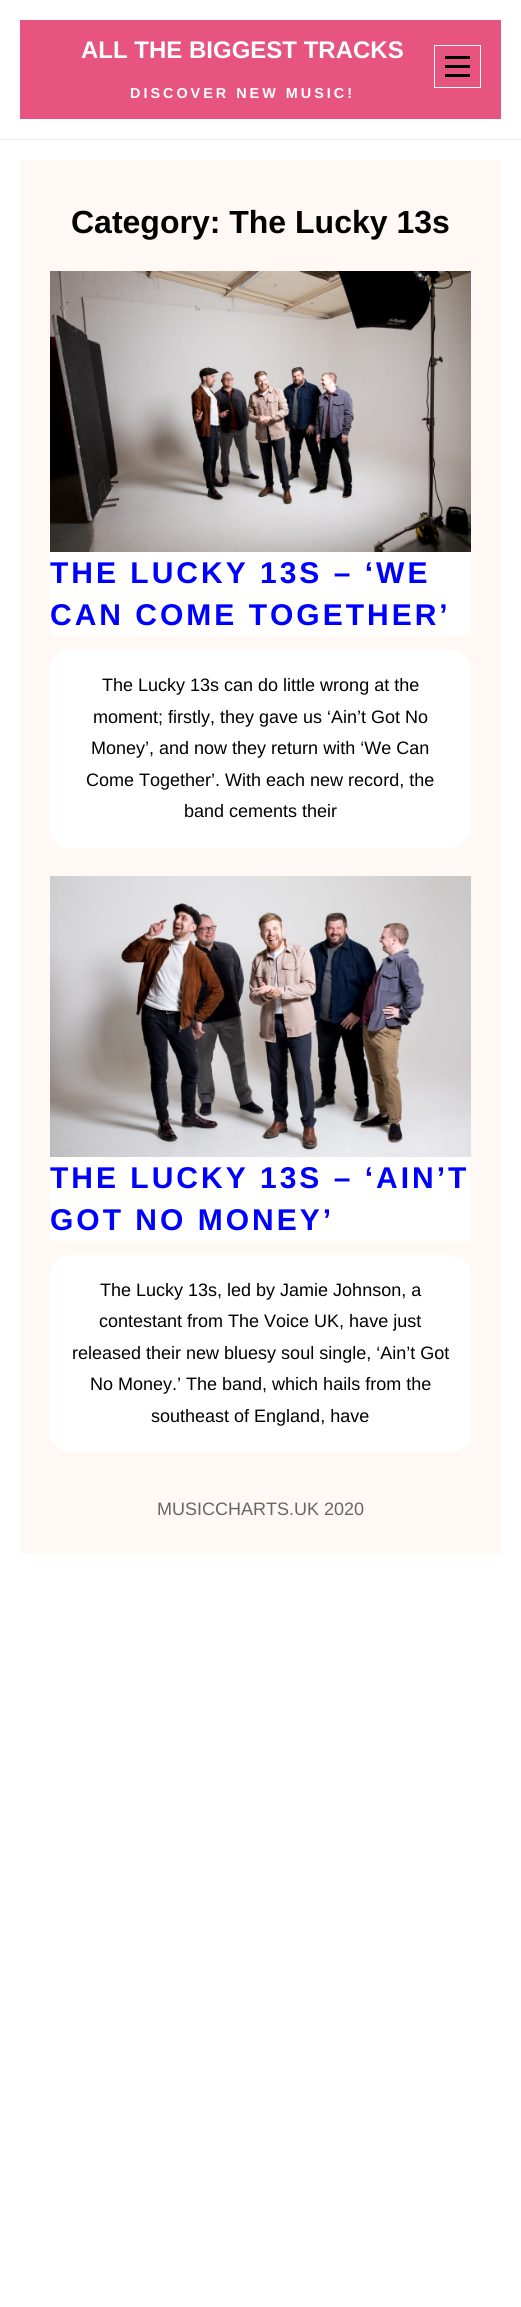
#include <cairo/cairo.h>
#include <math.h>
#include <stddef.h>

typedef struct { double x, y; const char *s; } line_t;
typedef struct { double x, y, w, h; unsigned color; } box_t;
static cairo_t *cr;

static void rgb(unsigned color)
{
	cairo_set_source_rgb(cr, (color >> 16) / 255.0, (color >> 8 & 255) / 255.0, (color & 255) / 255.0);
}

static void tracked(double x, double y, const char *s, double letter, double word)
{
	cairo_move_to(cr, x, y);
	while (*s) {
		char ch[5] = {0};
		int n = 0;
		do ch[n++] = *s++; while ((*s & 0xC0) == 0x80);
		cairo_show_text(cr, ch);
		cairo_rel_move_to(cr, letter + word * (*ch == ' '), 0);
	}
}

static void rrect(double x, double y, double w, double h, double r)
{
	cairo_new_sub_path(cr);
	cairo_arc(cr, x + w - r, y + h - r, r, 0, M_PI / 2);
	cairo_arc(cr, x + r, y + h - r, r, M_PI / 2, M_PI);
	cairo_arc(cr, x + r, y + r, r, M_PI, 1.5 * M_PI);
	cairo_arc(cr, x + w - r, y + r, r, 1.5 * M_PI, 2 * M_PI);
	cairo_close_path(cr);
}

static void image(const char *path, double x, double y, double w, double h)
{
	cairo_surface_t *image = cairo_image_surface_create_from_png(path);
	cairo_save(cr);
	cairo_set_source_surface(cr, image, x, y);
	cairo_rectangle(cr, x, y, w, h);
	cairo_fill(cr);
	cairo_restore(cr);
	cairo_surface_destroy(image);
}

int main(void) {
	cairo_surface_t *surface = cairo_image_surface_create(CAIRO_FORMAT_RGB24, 521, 2307);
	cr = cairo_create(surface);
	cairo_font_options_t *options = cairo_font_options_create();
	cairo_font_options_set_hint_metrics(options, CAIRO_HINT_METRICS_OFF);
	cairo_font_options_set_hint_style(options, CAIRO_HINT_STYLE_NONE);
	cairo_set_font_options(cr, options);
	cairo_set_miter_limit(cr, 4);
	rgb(0xffffff);
	cairo_paint(cr);
	rgb(0xe75480);
	cairo_rectangle(cr, 20, 20, 481, 99);
	cairo_fill(cr);
	cairo_rectangle(cr, 434.5, 45.5, 46, 42);
	rgb(0xffffff);
	cairo_set_line_width(cr, 1);
	cairo_stroke(cr);
	{
		static const box_t items[] = {
			{445, 56, 25, 3, 0x000000},
			{445, 65, 25, 3, 0x000000},
			{445, 74, 25, 3, 0x000000},
			{0, 139, 521, 1, 0xebebeb},
			{20, 160, 481, 1394, 0xfff8f5},
		};
		for (size_t i = 0; i < sizeof items / sizeof *items; i++) {
			rgb(items[i].color);
			cairo_rectangle(cr, items[i].x, items[i].y, items[i].w, items[i].h);
			cairo_fill(cr);
		}
	}
	image("img/1.png", 50, 271, 421, 281);
	rgb(0xffffff);
	cairo_rectangle(cr, 50, 552, 421, 84);
	cairo_fill(cr);
	rrect(50, 650, 421, 198, 20);
	cairo_fill(cr);
	image("img/2.png", 50, 876, 421, 281);
	cairo_rectangle(cr, 50, 1157, 421, 84);
	cairo_fill(cr);
	rrect(50, 1255, 421, 197, 20);
	cairo_fill(cr);
	cairo_select_font_face(cr, "Liberation Sans", CAIRO_FONT_SLANT_NORMAL, CAIRO_FONT_WEIGHT_BOLD);
	cairo_set_font_size(cr, 24);
	cairo_move_to(cr, 81, 58);
	cairo_show_text(cr, "ALL THE BIGGEST TRACKS");
	cairo_set_font_size(cr, 14.4);
	tracked(130, 98, "DISCOVER NEW MUSIC!", 3, 0);
	cairo_set_font_size(cr, 32);
	rgb(0x000000);
	cairo_move_to(cr, 71, 233);
	cairo_show_text(cr, "Category: The Lucky 13s");
	cairo_set_font_size(cr, 30);
	rgb(0x0000ff);
	tracked(50, 583, "THE LUCKY 13S – ‘WE", 3, 0);
	tracked(50, 625, "CAN COME TOGETHER’", 3, 0);
	cairo_select_font_face(cr, "Liberation Sans", CAIRO_FONT_SLANT_NORMAL, CAIRO_FONT_WEIGHT_NORMAL);
	cairo_set_font_size(cr, 18);
	rgb(0x000000);
	{
		static const line_t items[] = {
			{102, 691, "The Lucky 13s can do little wrong at the"},
			{93, 723, "moment; firstly, they gave us ‘Ain’t Got No"},
			{91, 754, "Money’, and now they return with ‘We Can"},
			{86, 786, "Come Together’. With each new record, the"},
			{184, 817, "band cements their"},
		};
		for (size_t i = 0; i < sizeof items / sizeof *items; i++) {
			cairo_move_to(cr, items[i].x, items[i].y);
			cairo_show_text(cr, items[i].s);
		}
	}
	cairo_select_font_face(cr, "Liberation Sans", CAIRO_FONT_SLANT_NORMAL, CAIRO_FONT_WEIGHT_BOLD);
	cairo_set_font_size(cr, 30);
	rgb(0x0000ff);
	tracked(50, 1188, "THE LUCKY 13S – ‘AIN’T", 3, 0);
	tracked(50, 1230, "GOT NO MONEY’", 3, 0);
	cairo_select_font_face(cr, "Liberation Sans", CAIRO_FONT_SLANT_NORMAL, CAIRO_FONT_WEIGHT_NORMAL);
	cairo_set_font_size(cr, 18);
	rgb(0x000000);
	{
		static const line_t items[] = {
			{100, 1296, "The Lucky 13s, led by Jamie Johnson, a"},
			{99, 1327, "contestant from The Voice UK, have just"},
			{72, 1359, "released their new bluesy soul single, ‘Ain’t Got"},
			{90, 1390, "No Money.’ The band, which hails from the"},
			{151, 1422, "southeast of England, have"},
		};
		for (size_t i = 0; i < sizeof items / sizeof *items; i++) {
			cairo_move_to(cr, items[i].x, items[i].y);
			cairo_show_text(cr, items[i].s);
		}
	}
	rgb(0x666666);
	cairo_move_to(cr, 157, 1515);
	cairo_show_text(cr, "MUSICCHARTS.UK 2020");
	cairo_surface_write_to_png(surface, "page.png");
	cairo_font_options_destroy(options);
	cairo_destroy(cr);
	cairo_surface_destroy(surface);
	return 0;
}
